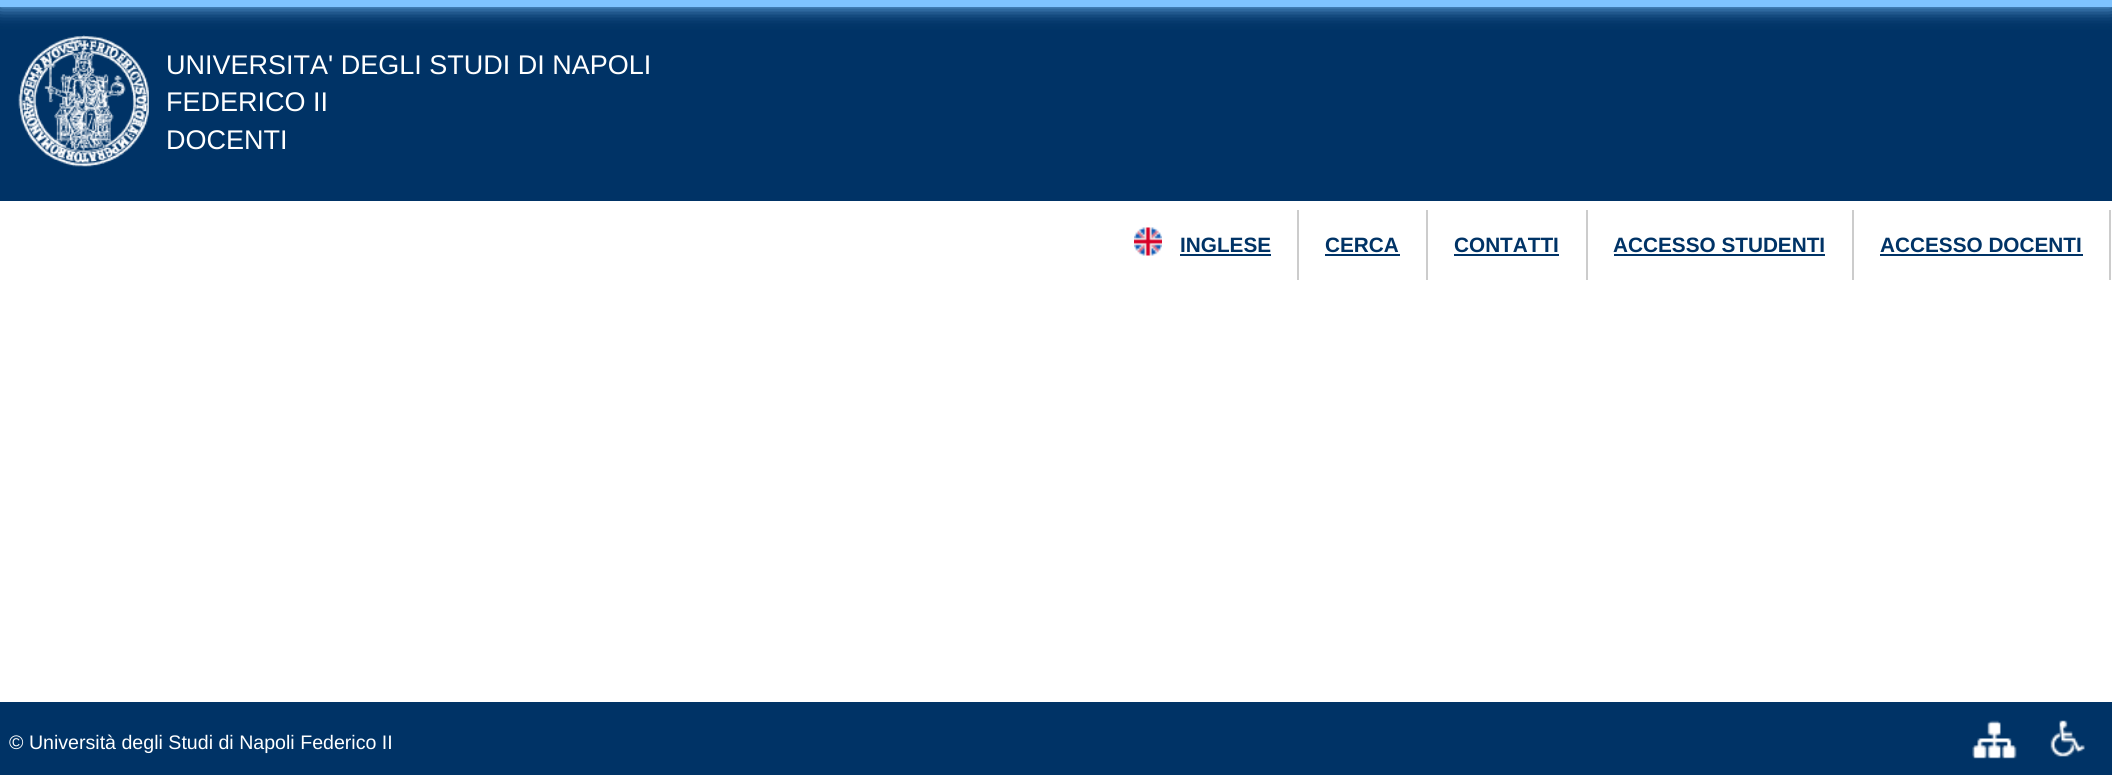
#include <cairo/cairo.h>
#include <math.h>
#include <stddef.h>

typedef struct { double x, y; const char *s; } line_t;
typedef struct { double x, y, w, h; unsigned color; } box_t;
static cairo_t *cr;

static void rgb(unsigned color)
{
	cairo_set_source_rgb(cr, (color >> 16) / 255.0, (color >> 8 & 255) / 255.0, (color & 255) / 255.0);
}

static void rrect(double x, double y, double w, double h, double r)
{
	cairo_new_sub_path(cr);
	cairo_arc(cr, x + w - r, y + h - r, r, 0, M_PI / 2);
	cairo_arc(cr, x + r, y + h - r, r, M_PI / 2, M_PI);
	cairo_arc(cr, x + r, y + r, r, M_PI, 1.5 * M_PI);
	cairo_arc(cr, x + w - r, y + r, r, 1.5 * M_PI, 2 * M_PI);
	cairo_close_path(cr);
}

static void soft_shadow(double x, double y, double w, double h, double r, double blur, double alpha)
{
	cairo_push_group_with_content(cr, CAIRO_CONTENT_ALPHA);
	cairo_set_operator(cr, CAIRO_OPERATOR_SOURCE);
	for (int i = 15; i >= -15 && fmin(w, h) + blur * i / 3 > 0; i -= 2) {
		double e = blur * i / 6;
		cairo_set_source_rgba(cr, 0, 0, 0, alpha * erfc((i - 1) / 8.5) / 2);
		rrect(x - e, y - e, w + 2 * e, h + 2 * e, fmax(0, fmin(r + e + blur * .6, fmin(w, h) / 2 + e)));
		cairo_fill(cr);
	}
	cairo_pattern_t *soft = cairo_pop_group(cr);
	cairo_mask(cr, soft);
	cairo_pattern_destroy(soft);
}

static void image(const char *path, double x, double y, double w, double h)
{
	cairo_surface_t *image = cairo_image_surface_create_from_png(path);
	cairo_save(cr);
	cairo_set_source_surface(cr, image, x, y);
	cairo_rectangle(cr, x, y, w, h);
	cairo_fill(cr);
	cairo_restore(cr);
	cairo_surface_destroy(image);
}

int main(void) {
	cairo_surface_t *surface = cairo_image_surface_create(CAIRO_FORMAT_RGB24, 2112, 775);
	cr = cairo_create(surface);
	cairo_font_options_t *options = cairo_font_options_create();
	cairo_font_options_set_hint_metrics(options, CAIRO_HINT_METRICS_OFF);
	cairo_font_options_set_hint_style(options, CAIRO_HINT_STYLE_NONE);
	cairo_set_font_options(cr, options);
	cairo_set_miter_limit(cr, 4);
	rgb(0xffffff);
	cairo_paint(cr);
	rgb(0x003366);
	cairo_rectangle(cr, 0, 7, 2112, 194);
	cairo_fill(cr);
	rgb(0x7ec3ff);
	soft_shadow(0, 0, 2112, 7, 0, 9, 1);
	rgb(0x7ec3ff);
	cairo_rectangle(cr, 0, 0, 2112, 7);
	cairo_fill(cr);
	image("img/1.png", 18, 35, 131, 132);
	rgb(0xcccccc);
	cairo_rectangle(cr, 1297, 210, 2, 70);
	cairo_fill(cr);
	image("img/2.png", 1134, 227, 28, 29);
	{
		static const box_t items[] = {
			{1180, 254, 91, 2, 0x003366},
			{1426, 210, 2, 70, 0xcccccc},
			{1325, 254, 75, 2, 0x003366},
			{1586, 210, 2, 70, 0xcccccc},
			{1454, 254, 105, 2, 0x003366},
			{1852, 210, 2, 70, 0xcccccc},
			{1614, 254, 211, 2, 0x003366},
			{2109, 210, 2, 70, 0xcccccc},
			{1880, 254, 203, 2, 0x003366},
			{0, 702, 2112, 73, 0x003366},
		};
		for (size_t i = 0; i < sizeof items / sizeof *items; i++) {
			rgb(items[i].color);
			cairo_rectangle(cr, items[i].x, items[i].y, items[i].w, items[i].h);
			cairo_fill(cr);
		}
	}
	image("img/3.png", 1972, 720, 45, 39);
	image("img/4.png", 2050, 720, 35, 37);
	cairo_select_font_face(cr, "Liberation Sans", CAIRO_FONT_SLANT_NORMAL, CAIRO_FONT_WEIGHT_NORMAL);
	cairo_set_font_size(cr, 27);
	rgb(0xffffff);
	{
		static const line_t items[] = {
			{166, 74, "UNIVERSITA' DEGLI STUDI DI NAPOLI"},
			{166, 111, "FEDERICO II"},
			{166, 149, "DOCENTI"},
		};
		for (size_t i = 0; i < sizeof items / sizeof *items; i++) {
			cairo_move_to(cr, items[i].x, items[i].y);
			cairo_show_text(cr, items[i].s);
		}
	}
	cairo_select_font_face(cr, "Liberation Sans", CAIRO_FONT_SLANT_NORMAL, CAIRO_FONT_WEIGHT_BOLD);
	cairo_set_font_size(cr, 20.75);
	rgb(0x003366);
	{
		static const line_t items[] = {
			{1180, 252, "INGLESE"},
			{1325, 252, "CERCA"},
			{1454, 252, "CONTATTI"},
			{1613, 252, "ACCESSO STUDENTI"},
			{1880, 252, "ACCESSO DOCENTI"},
		};
		for (size_t i = 0; i < sizeof items / sizeof *items; i++) {
			cairo_move_to(cr, items[i].x, items[i].y);
			cairo_show_text(cr, items[i].s);
		}
	}
	cairo_select_font_face(cr, "Liberation Sans", CAIRO_FONT_SLANT_NORMAL, CAIRO_FONT_WEIGHT_NORMAL);
	cairo_set_font_size(cr, 19.6);
	rgb(0xffffff);
	cairo_move_to(cr, 9, 749);
	cairo_show_text(cr, "© Università degli Studi di Napoli Federico II");
	cairo_surface_write_to_png(surface, "page.png");
	cairo_font_options_destroy(options);
	cairo_destroy(cr);
	cairo_surface_destroy(surface);
	return 0;
}
